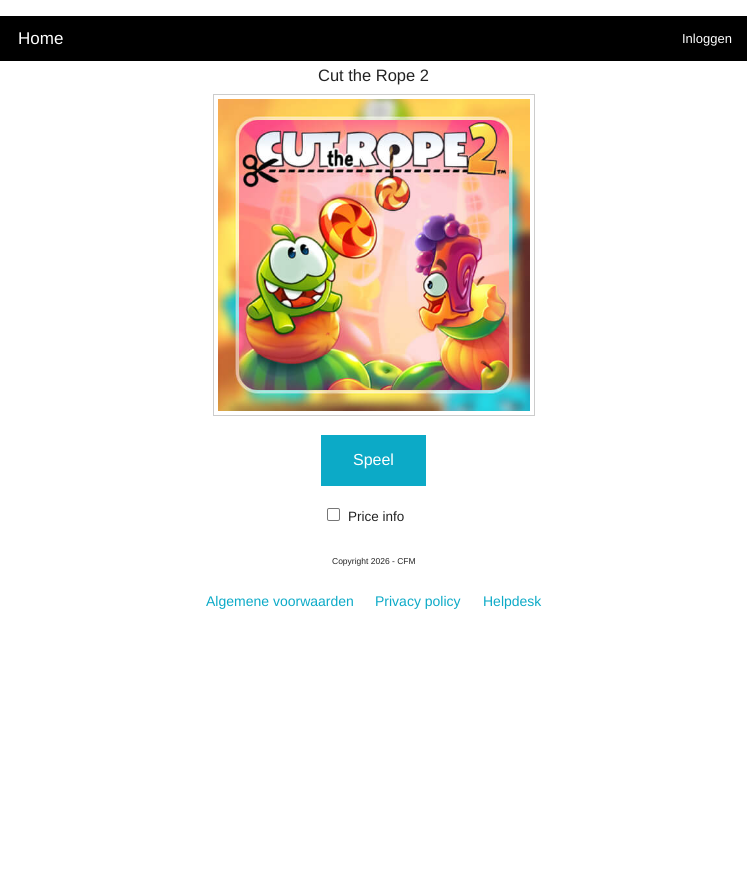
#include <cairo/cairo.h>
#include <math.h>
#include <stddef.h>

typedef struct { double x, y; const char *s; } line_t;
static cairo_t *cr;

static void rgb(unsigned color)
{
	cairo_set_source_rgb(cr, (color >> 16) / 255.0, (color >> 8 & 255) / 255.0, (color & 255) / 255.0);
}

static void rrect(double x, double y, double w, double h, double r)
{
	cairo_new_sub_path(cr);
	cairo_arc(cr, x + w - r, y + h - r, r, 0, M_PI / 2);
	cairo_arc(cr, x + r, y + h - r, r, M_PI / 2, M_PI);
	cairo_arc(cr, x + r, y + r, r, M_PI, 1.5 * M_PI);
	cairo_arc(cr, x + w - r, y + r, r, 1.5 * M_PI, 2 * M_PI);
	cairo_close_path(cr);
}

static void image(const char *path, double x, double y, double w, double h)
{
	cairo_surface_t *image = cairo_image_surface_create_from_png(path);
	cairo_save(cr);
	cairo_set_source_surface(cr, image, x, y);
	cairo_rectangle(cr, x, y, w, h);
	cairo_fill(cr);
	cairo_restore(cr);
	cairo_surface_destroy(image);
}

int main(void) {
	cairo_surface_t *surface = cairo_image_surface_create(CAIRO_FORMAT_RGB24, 747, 880);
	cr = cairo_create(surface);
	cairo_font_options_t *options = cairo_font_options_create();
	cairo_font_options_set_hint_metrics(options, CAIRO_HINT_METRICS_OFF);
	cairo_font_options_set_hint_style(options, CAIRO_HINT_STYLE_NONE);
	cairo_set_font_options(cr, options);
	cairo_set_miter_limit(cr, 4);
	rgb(0xffffff);
	cairo_paint(cr);
	rgb(0x000000);
	cairo_rectangle(cr, 0, 16, 747, 45);
	cairo_fill(cr);
	cairo_rectangle(cr, 213.5, 94.5, 321, 321);
	rgb(0xcccccc);
	cairo_set_line_width(cr, 1);
	cairo_stroke(cr);
	image("img/1.png", 218, 99, 312, 312);
	rgb(0x0caac7);
	cairo_rectangle(cr, 321, 435, 105, 51);
	cairo_fill(cr);
	rrect(327.5, 508.5, 12, 12, 1.5);
	rgb(0x767676);
	cairo_stroke(cr);
	cairo_select_font_face(cr, "Liberation Sans", CAIRO_FONT_SLANT_NORMAL, CAIRO_FONT_WEIGHT_NORMAL);
	cairo_set_font_size(cr, 17);
	rgb(0xffffff);
	cairo_move_to(cr, 18, 44);
	cairo_show_text(cr, "Home");
	cairo_set_font_size(cr, 13);
	cairo_move_to(cr, 682, 43);
	cairo_show_text(cr, "Inloggen");
	cairo_set_font_size(cr, 16.5);
	rgb(0x222222);
	cairo_move_to(cr, 318, 81);
	cairo_show_text(cr, "Cut the Rope 2");
	cairo_set_font_size(cr, 16);
	rgb(0xffffff);
	cairo_move_to(cr, 353, 465);
	cairo_show_text(cr, "Speel");
	cairo_set_font_size(cr, 13.5);
	rgb(0x222222);
	cairo_move_to(cr, 348, 521);
	cairo_show_text(cr, "Price info");
	cairo_set_font_size(cr, 8.5);
	cairo_move_to(cr, 332, 564);
	cairo_show_text(cr, "Copyright 2026 - CFM");
	cairo_set_font_size(cr, 14);
	rgb(0x0caac7);
	{
		static const line_t items[] = {
			{206, 606, "Algemene voorwaarden"},
			{375, 606, "Privacy policy"},
			{483, 606, "Helpdesk"},
		};
		for (size_t i = 0; i < sizeof items / sizeof *items; i++) {
			cairo_move_to(cr, items[i].x, items[i].y);
			cairo_show_text(cr, items[i].s);
		}
	}
	cairo_surface_write_to_png(surface, "page.png");
	cairo_font_options_destroy(options);
	cairo_destroy(cr);
	cairo_surface_destroy(surface);
	return 0;
}
